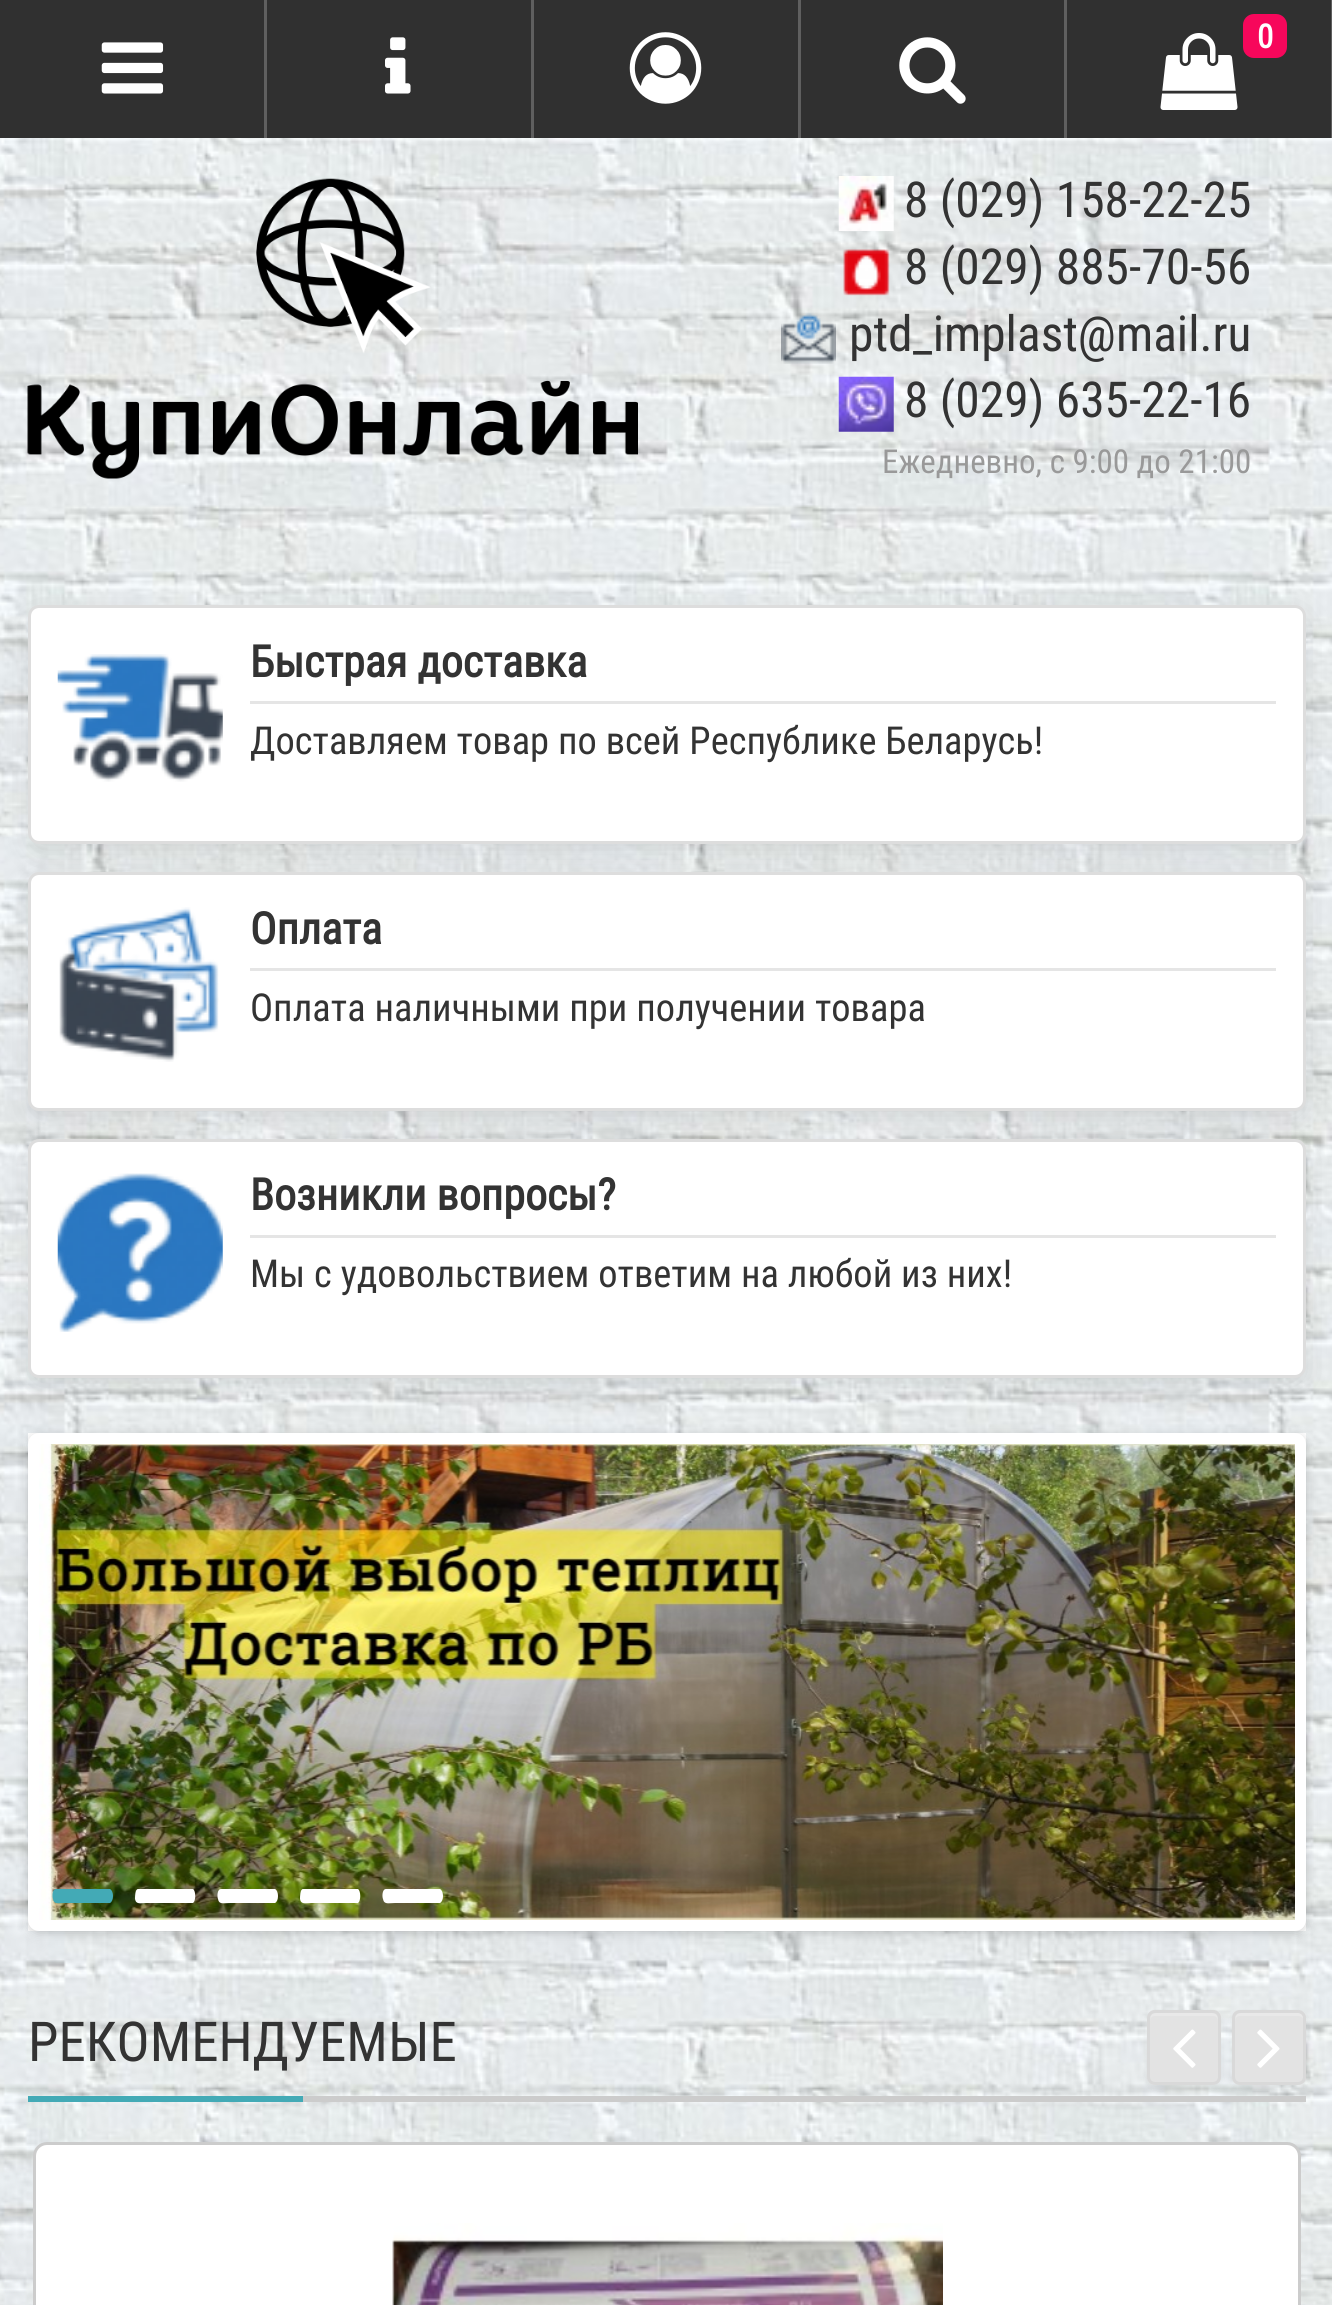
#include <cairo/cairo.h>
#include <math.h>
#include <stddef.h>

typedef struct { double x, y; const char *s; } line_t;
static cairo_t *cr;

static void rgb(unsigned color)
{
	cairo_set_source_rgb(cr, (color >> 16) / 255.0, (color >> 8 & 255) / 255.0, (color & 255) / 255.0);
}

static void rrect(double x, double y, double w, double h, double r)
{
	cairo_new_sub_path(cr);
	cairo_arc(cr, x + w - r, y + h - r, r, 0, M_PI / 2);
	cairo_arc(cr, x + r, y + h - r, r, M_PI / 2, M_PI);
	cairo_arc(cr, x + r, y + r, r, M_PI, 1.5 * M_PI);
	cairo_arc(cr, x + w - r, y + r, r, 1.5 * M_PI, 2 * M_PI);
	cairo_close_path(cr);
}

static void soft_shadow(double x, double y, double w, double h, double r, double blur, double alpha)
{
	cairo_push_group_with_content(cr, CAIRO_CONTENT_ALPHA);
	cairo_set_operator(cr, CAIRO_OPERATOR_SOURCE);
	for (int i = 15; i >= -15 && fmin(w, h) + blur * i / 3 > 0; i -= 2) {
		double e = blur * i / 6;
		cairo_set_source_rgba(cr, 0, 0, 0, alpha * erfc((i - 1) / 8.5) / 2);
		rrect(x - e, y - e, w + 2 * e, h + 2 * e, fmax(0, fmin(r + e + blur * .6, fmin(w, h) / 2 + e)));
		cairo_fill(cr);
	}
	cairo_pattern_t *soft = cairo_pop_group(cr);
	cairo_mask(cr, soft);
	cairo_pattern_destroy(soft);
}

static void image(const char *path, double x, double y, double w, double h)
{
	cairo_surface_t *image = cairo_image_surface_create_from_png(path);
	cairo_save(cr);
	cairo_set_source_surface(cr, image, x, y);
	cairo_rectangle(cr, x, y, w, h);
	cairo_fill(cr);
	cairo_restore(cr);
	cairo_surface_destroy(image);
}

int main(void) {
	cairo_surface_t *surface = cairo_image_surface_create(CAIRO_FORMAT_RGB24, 1332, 2305);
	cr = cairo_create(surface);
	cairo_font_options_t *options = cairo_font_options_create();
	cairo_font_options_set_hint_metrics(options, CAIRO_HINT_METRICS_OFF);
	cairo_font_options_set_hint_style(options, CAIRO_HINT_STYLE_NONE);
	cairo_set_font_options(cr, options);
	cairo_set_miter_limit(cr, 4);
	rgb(0xffffff);
	cairo_paint(cr);
	image("img/1.png", 0, 138, 1332, 2167);
	rgb(0x303030);
	cairo_rectangle(cr, 0, 0, 1331, 138);
	cairo_fill(cr);
	rgb(0x5f5f5f);
	cairo_rectangle(cr, 264, 0, 3, 138);
	cairo_fill(cr);
	image("img/2.png", 101, 42, 63, 52);
	cairo_rectangle(cr, 531, 0, 3, 138);
	cairo_fill(cr);
	image("img/3.png", 385, 37, 26, 57);
	cairo_rectangle(cr, 798, 0, 3, 138);
	cairo_fill(cr);
	image("img/4.png", 629, 32, 73, 72);
	cairo_rectangle(cr, 1064, 0, 3, 138);
	cairo_fill(cr);
	image("img/5.png", 899, 37, 67, 67);
	cairo_rectangle(cr, 1331, 0, 1, 138);
	cairo_fill(cr);
	image("img/6.png", 1160, 33, 78, 77);
	rgb(0xf7075b);
	rrect(1243, 14, 44, 44, 11);
	cairo_fill(cr);
	image("img/7.png", 27, 178, 611, 301);
	image("img/8.png", 838, 176, 56, 55);
	image("img/9.png", 843, 249, 47, 47);
	image("img/10.png", 781, 312, 55, 52);
	image("img/11.png", 838, 376, 56, 56);
	rgb(0x000000);
	soft_shadow(28, 613, 1278, 240, 11, 14, 0.1);
	rgb(0xffffff);
	rrect(29.5, 606.5, 1275, 236, 9.5);
	cairo_fill_preserve(cr);
	rgb(0xdddddd);
	cairo_set_line_width(cr, 3);
	cairo_stroke(cr);
	image("img/12.png", 57, 654, 166, 128);
	rgb(0xe5e5e5);
	cairo_rectangle(cr, 250, 701, 1026, 3);
	cairo_fill(cr);
	rgb(0x000000);
	soft_shadow(28, 880, 1278, 239, 11, 14, 0.1);
	rgb(0xffffff);
	rrect(29.5, 873.5, 1275, 236, 9.5);
	cairo_fill_preserve(cr);
	rgb(0xdddddd);
	cairo_stroke(cr);
	image("img/13.png", 59, 907, 160, 155);
	rgb(0xe5e5e5);
	cairo_rectangle(cr, 250, 968, 1026, 3);
	cairo_fill(cr);
	rgb(0x000000);
	soft_shadow(28, 1147, 1278, 239, 11, 14, 0.1);
	rgb(0xffffff);
	rrect(29.5, 1140.5, 1275, 236, 9.5);
	cairo_fill_preserve(cr);
	rgb(0xdddddd);
	cairo_stroke(cr);
	image("img/14.png", 57, 1173, 166, 159);
	rgb(0xe5e5e5);
	cairo_rectangle(cr, 250, 1235, 1026, 3);
	cairo_fill(cr);
	rgb(0xffffff);
	cairo_rectangle(cr, 28, 1433, 1278, 498);
	cairo_fill(cr);
	rgb(0x000000);
	soft_shadow(28, 1436, 1278, 497, 11, 5.5, 0.2);
	rrect(33.5, 1438.5, 1267, 487, 5.5);
	rgb(0xffffff);
	cairo_set_line_width(cr, 11);
	cairo_stroke(cr);
	image("img/15.png", 39, 1444, 1256, 476);
	rgb(0x43aab6);
	cairo_new_path(cr);
	cairo_move_to(cr, 56, 1889);
	cairo_line_to(cr, 110, 1889);
	cairo_curve_to(cr, 114, 1891, 114, 1901, 110, 1903);
	cairo_line_to(cr, 65, 1903);
	cairo_curve_to(cr, 59, 1903, 54, 1905, 53, 1899);
	cairo_curve_to(cr, 52, 1897, 52, 1889, 56, 1889);
	cairo_close_path(cr);
	cairo_fill(cr);
	rgb(0xffffff);
	cairo_new_path(cr);
	cairo_move_to(cr, 138, 1889);
	cairo_line_to(cr, 193, 1889);
	cairo_curve_to(cr, 196, 1891, 196, 1901, 193, 1903);
	cairo_line_to(cr, 147, 1903);
	cairo_curve_to(cr, 141, 1903, 136, 1905, 135, 1899);
	cairo_curve_to(cr, 135, 1897, 135, 1889, 138, 1889);
	cairo_close_path(cr);
	cairo_fill(cr);
	cairo_new_path(cr);
	cairo_move_to(cr, 221, 1889);
	cairo_line_to(cr, 275, 1889);
	cairo_curve_to(cr, 279, 1891, 279, 1901, 275, 1903);
	cairo_line_to(cr, 230, 1903);
	cairo_curve_to(cr, 224, 1903, 219, 1905, 218, 1899);
	cairo_curve_to(cr, 217, 1897, 217, 1889, 221, 1889);
	cairo_close_path(cr);
	cairo_fill(cr);
	cairo_new_path(cr);
	cairo_move_to(cr, 303, 1889);
	cairo_line_to(cr, 358, 1889);
	cairo_curve_to(cr, 361, 1891, 361, 1901, 358, 1903);
	cairo_line_to(cr, 312, 1903);
	cairo_curve_to(cr, 306, 1903, 301, 1905, 300, 1899);
	cairo_curve_to(cr, 300, 1897, 300, 1889, 303, 1889);
	cairo_close_path(cr);
	cairo_fill(cr);
	cairo_new_path(cr);
	cairo_move_to(cr, 386, 1889);
	cairo_line_to(cr, 440, 1889);
	cairo_curve_to(cr, 444, 1891, 444, 1901, 440, 1903);
	cairo_line_to(cr, 395, 1903);
	cairo_curve_to(cr, 389, 1903, 384, 1905, 383, 1899);
	cairo_curve_to(cr, 382, 1897, 382, 1889, 386, 1889);
	cairo_close_path(cr);
	cairo_fill(cr);
	rgb(0xcccccc);
	cairo_rectangle(cr, 303, 2096, 1003, 6);
	cairo_fill(cr);
	rgb(0x000000);
	soft_shadow(1147, 2013, 74, 74, 8, 3, 0.05);
	rgb(0xe3e3e3);
	rrect(1147, 2010, 74, 75, 8);
	cairo_fill(cr);
	rgb(0xe9e9e9);
	cairo_new_path(cr);
	cairo_move_to(cr, 1155, 2016);
	cairo_line_to(cr, 1213, 2016);
	cairo_curve_to(cr, 1216, 2016, 1218, 2018, 1218, 2021);
	cairo_curve_to(cr, 1218, 2011, 1211, 2013, 1203, 2013);
	cairo_line_to(cr, 1165, 2013);
	cairo_curve_to(cr, 1157, 2013, 1150, 2011, 1150, 2021);
	cairo_curve_to(cr, 1150, 2018, 1152, 2016, 1155, 2016);
	cairo_close_path(cr);
	cairo_fill(cr);
	rrect(1148.5, 2011.5, 71, 72, 6.5);
	rgb(0xd9d9d9);
	cairo_set_line_width(cr, 3);
	cairo_stroke(cr);
	image("img/16.png", 1173, 2029, 23, 39);
	rgb(0x000000);
	soft_shadow(1232, 2013, 74, 74, 8, 3, 0.05);
	rgb(0xe3e3e3);
	rrect(1232, 2010, 74, 75, 8);
	cairo_fill(cr);
	rgb(0xe9e9e9);
	cairo_new_path(cr);
	cairo_move_to(cr, 1240, 2016);
	cairo_line_to(cr, 1298, 2016);
	cairo_curve_to(cr, 1301, 2016, 1304, 2018, 1304, 2021);
	cairo_curve_to(cr, 1304, 2011, 1297, 2013, 1288, 2013);
	cairo_line_to(cr, 1250, 2013);
	cairo_curve_to(cr, 1242, 2013, 1235, 2011, 1235, 2021);
	cairo_curve_to(cr, 1235, 2018, 1237, 2016, 1240, 2016);
	cairo_close_path(cr);
	cairo_fill(cr);
	rrect(1233.5, 2011.5, 71, 72, 6.5);
	rgb(0xd9d9d9);
	cairo_stroke(cr);
	image("img/17.png", 1257, 2029, 23, 39);
	rgb(0xffffff);
	rrect(34.5, 2143.5, 1265, 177, 12.5);
	cairo_fill_preserve(cr);
	rgb(0xcccccc);
	cairo_stroke(cr);
	image("img/18.png", 392, 2223, 551, 82);
	rgb(0x43aab6);
	cairo_rectangle(cr, 28, 2096, 275, 6);
	cairo_fill(cr);
	cairo_select_font_face(cr, "Roboto Condensed", CAIRO_FONT_SLANT_NORMAL, CAIRO_FONT_WEIGHT_BOLD);
	cairo_set_font_size(cr, 33);
	rgb(0xffffff);
	cairo_move_to(cr, 1257, 48);
	cairo_show_text(cr, "0");
	cairo_select_font_face(cr, "Roboto Condensed", CAIRO_FONT_SLANT_NORMAL, CAIRO_FONT_WEIGHT_NORMAL);
	cairo_set_font_size(cr, 49.5);
	rgb(0x333333);
	{
		static const line_t items[] = {
			{904, 217, "8 (029) 158-22-25"},
			{904, 284, "8 (029) 885-70-56"},
			{849, 351, "ptd_implast@mail.ru"},
			{904, 417, "8 (029) 635-22-16"},
		};
		for (size_t i = 0; i < sizeof items / sizeof *items; i++) {
			cairo_move_to(cr, items[i].x, items[i].y);
			cairo_show_text(cr, items[i].s);
		}
	}
	cairo_set_font_size(cr, 33);
	rgb(0x999999);
	cairo_move_to(cr, 882, 473);
	cairo_show_text(cr, "Ежедневно, с 9:00 до 21:00");
	cairo_select_font_face(cr, "Roboto Condensed", CAIRO_FONT_SLANT_NORMAL, CAIRO_FONT_WEIGHT_BOLD);
	cairo_set_font_size(cr, 44);
	rgb(0x333333);
	cairo_move_to(cr, 250, 677);
	cairo_show_text(cr, "Быстрая доставка");
	cairo_select_font_face(cr, "Roboto Condensed", CAIRO_FONT_SLANT_NORMAL, CAIRO_FONT_WEIGHT_NORMAL);
	cairo_set_font_size(cr, 38.5);
	cairo_move_to(cr, 250, 754);
	cairo_show_text(cr, "Доставляем товар по всей Республике Беларусь!");
	cairo_select_font_face(cr, "Roboto Condensed", CAIRO_FONT_SLANT_NORMAL, CAIRO_FONT_WEIGHT_BOLD);
	cairo_set_font_size(cr, 44);
	cairo_move_to(cr, 250, 944);
	cairo_show_text(cr, "Оплата");
	cairo_select_font_face(cr, "Roboto Condensed", CAIRO_FONT_SLANT_NORMAL, CAIRO_FONT_WEIGHT_NORMAL);
	cairo_set_font_size(cr, 38.5);
	cairo_move_to(cr, 250, 1021);
	cairo_show_text(cr, "Оплата наличными при получении товара");
	cairo_select_font_face(cr, "Roboto Condensed", CAIRO_FONT_SLANT_NORMAL, CAIRO_FONT_WEIGHT_BOLD);
	cairo_set_font_size(cr, 44);
	cairo_move_to(cr, 250, 1210);
	cairo_show_text(cr, "Возникли вопросы?");
	cairo_select_font_face(cr, "Roboto Condensed", CAIRO_FONT_SLANT_NORMAL, CAIRO_FONT_WEIGHT_NORMAL);
	cairo_set_font_size(cr, 38.5);
	cairo_move_to(cr, 250, 1287);
	cairo_show_text(cr, "Мы с удовольствием ответим на любой из них!");
	cairo_set_font_size(cr, 55);
	cairo_move_to(cr, 28, 2061);
	cairo_show_text(cr, "РЕКОМЕНДУЕМЫЕ");
	cairo_surface_write_to_png(surface, "page.png");
	cairo_font_options_destroy(options);
	cairo_destroy(cr);
	cairo_surface_destroy(surface);
	return 0;
}
